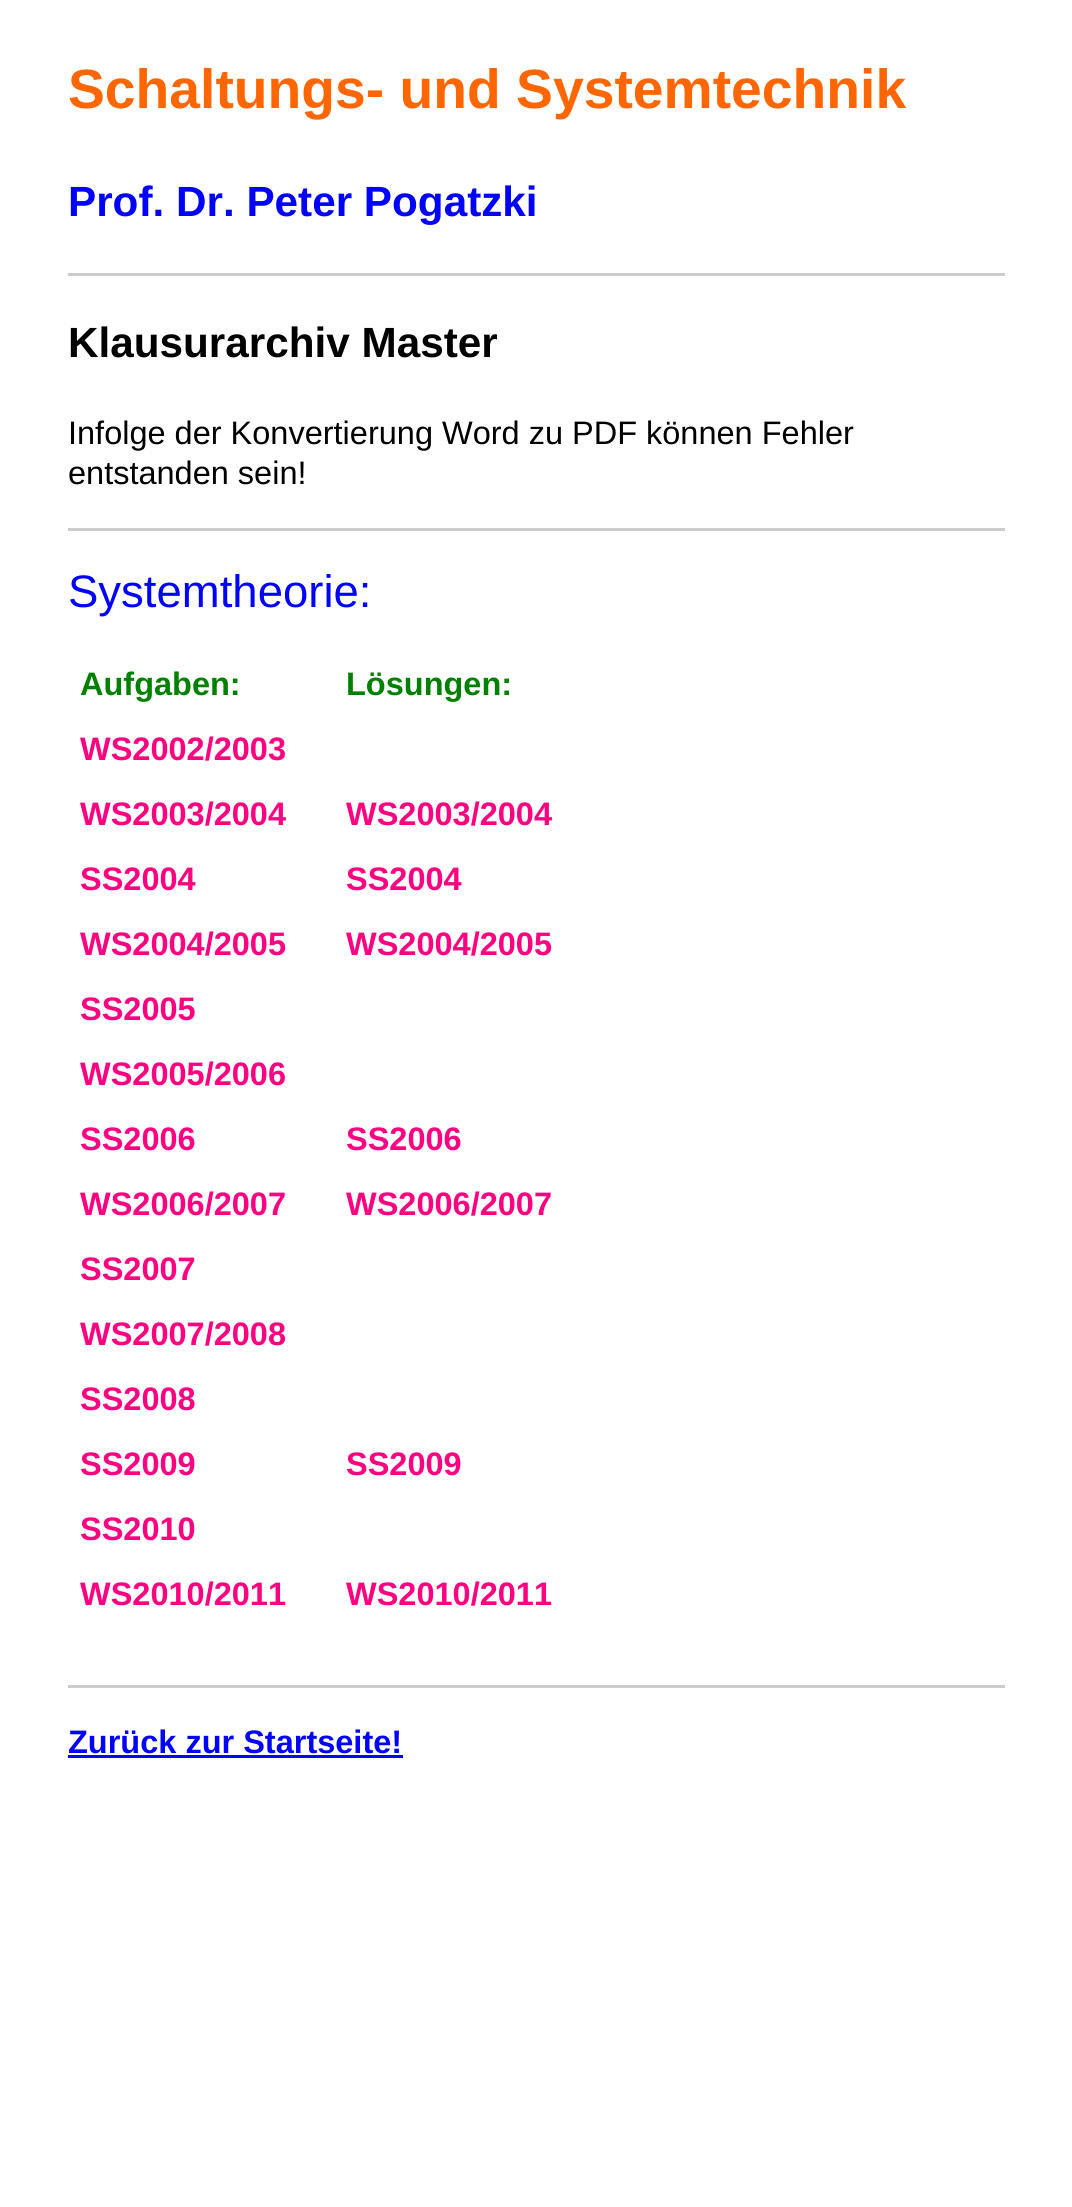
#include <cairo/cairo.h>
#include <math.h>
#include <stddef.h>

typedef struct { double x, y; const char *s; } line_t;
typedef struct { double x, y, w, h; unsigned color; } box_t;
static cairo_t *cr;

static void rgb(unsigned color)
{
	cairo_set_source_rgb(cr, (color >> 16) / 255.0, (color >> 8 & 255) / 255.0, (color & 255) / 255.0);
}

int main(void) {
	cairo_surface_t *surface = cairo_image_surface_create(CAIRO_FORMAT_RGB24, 1072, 2207);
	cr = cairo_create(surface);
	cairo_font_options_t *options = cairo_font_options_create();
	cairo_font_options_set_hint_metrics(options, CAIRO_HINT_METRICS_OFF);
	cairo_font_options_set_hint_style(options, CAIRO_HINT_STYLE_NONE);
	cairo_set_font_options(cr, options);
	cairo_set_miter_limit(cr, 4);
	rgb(0xffffff);
	cairo_paint(cr);
	{
		static const box_t items[] = {
			{68, 273, 937, 3, 0xcccccc},
			{68, 528, 937, 3, 0xcccccc},
			{68, 1685, 937, 3, 0xcccccc},
			{68, 1755, 335, 3, 0x0000ff},
		};
		for (size_t i = 0; i < sizeof items / sizeof *items; i++) {
			rgb(items[i].color);
			cairo_rectangle(cr, items[i].x, items[i].y, items[i].w, items[i].h);
			cairo_fill(cr);
		}
	}
	cairo_select_font_face(cr, "Liberation Sans", CAIRO_FONT_SLANT_NORMAL, CAIRO_FONT_WEIGHT_BOLD);
	cairo_set_font_size(cr, 55.25);
	rgb(0xff6600);
	cairo_move_to(cr, 68, 108);
	cairo_show_text(cr, "Schaltungs- und Systemtechnik");
	cairo_set_font_size(cr, 42.25);
	rgb(0x0000ff);
	cairo_move_to(cr, 68, 216);
	cairo_show_text(cr, "Prof. Dr. Peter Pogatzki");
	rgb(0x000000);
	cairo_move_to(cr, 68, 357);
	cairo_show_text(cr, "Klausurarchiv Master");
	cairo_select_font_face(cr, "Liberation Sans", CAIRO_FONT_SLANT_NORMAL, CAIRO_FONT_WEIGHT_NORMAL);
	cairo_set_font_size(cr, 32.5);
	cairo_move_to(cr, 68, 444);
	cairo_show_text(cr, "Infolge der Konvertierung Word zu PDF können Fehler");
	cairo_move_to(cr, 68, 484);
	cairo_show_text(cr, "entstanden sein!");
	cairo_set_font_size(cr, 45.5);
	rgb(0x0000ff);
	cairo_move_to(cr, 68, 607);
	cairo_show_text(cr, "Systemtheorie:");
	cairo_select_font_face(cr, "Liberation Sans", CAIRO_FONT_SLANT_NORMAL, CAIRO_FONT_WEIGHT_BOLD);
	cairo_set_font_size(cr, 32.5);
	rgb(0x008000);
	cairo_move_to(cr, 80, 695);
	cairo_show_text(cr, "Aufgaben:");
	cairo_move_to(cr, 346, 695);
	cairo_show_text(cr, "Lösungen:");
	rgb(0xff0080);
	{
		static const line_t items[] = {
			{80, 760, "WS2002/2003"},
			{80, 825, "WS2003/2004"},
			{346, 825, "WS2003/2004"},
			{80, 890, "SS2004"},
			{346, 890, "SS2004"},
			{80, 955, "WS2004/2005"},
			{346, 955, "WS2004/2005"},
			{80, 1020, "SS2005"},
			{80, 1085, "WS2005/2006"},
			{80, 1150, "SS2006"},
			{346, 1150, "SS2006"},
			{80, 1215, "WS2006/2007"},
			{346, 1215, "WS2006/2007"},
			{80, 1280, "SS2007"},
			{80, 1345, "WS2007/2008"},
			{80, 1410, "SS2008"},
			{80, 1475, "SS2009"},
			{346, 1475, "SS2009"},
			{80, 1540, "SS2010"},
			{80, 1605, "WS2010/2011"},
			{346, 1605, "WS2010/2011"},
		};
		for (size_t i = 0; i < sizeof items / sizeof *items; i++) {
			cairo_move_to(cr, items[i].x, items[i].y);
			cairo_show_text(cr, items[i].s);
		}
	}
	rgb(0x0000ff);
	cairo_move_to(cr, 68, 1753);
	cairo_show_text(cr, "Zurück zur Startseite!");
	cairo_surface_write_to_png(surface, "page.png");
	cairo_font_options_destroy(options);
	cairo_destroy(cr);
	cairo_surface_destroy(surface);
	return 0;
}
